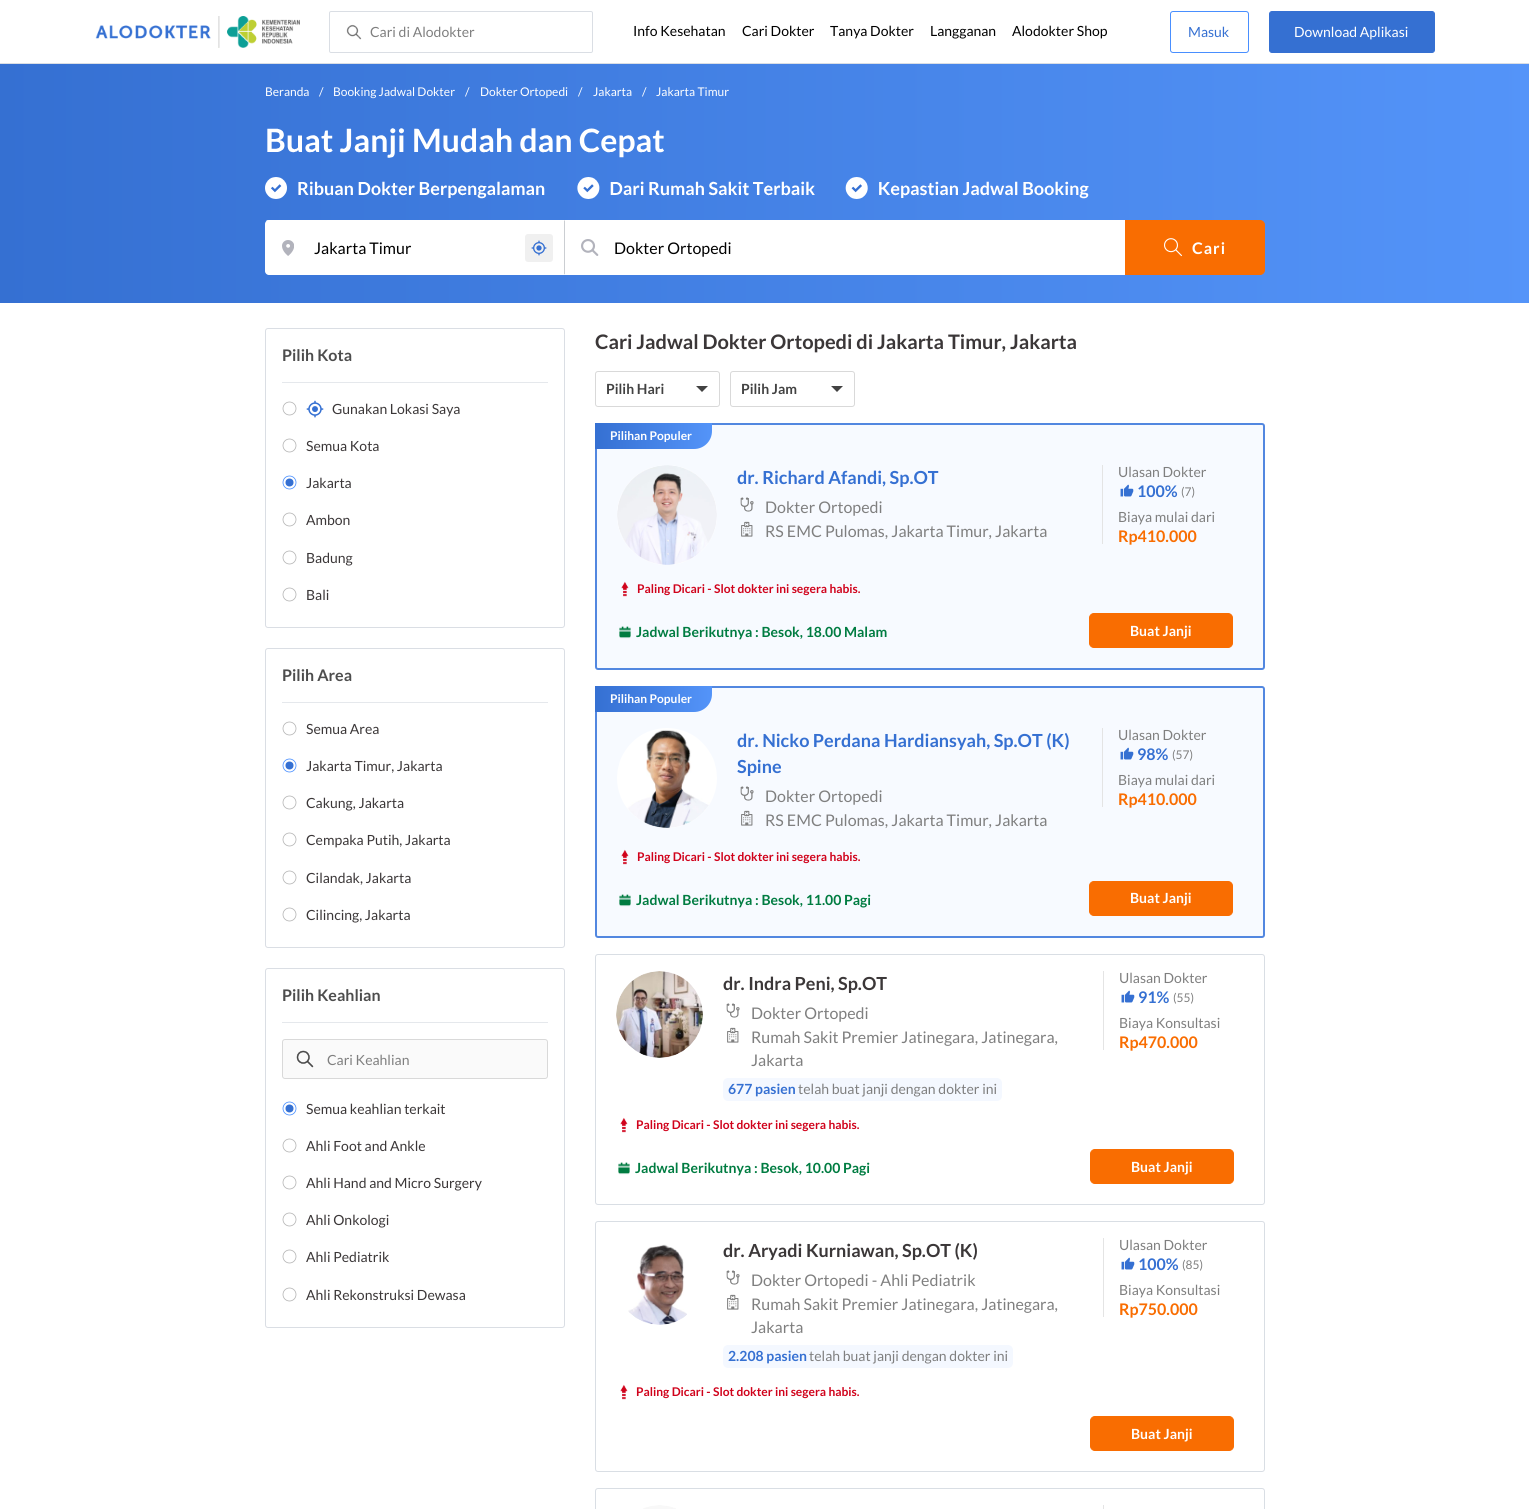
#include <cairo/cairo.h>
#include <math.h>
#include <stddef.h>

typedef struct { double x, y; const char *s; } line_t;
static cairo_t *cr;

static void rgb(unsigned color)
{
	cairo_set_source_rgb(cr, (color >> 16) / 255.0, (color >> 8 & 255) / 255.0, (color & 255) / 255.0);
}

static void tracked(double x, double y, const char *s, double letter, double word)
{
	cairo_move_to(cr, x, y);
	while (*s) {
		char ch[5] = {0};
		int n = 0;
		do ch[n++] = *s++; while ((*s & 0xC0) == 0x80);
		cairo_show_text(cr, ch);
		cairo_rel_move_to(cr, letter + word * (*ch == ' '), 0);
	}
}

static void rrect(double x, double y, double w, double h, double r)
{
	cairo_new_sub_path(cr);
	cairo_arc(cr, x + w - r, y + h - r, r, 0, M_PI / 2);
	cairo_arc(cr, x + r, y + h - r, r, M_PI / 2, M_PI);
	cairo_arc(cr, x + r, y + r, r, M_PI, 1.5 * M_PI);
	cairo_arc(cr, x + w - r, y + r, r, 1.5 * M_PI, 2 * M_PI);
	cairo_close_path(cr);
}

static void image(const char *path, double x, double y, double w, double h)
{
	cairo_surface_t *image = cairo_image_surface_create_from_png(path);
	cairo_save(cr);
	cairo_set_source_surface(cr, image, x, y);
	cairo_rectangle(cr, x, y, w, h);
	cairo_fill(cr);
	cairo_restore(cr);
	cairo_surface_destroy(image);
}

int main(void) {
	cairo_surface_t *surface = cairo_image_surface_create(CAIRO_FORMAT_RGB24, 1529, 1509);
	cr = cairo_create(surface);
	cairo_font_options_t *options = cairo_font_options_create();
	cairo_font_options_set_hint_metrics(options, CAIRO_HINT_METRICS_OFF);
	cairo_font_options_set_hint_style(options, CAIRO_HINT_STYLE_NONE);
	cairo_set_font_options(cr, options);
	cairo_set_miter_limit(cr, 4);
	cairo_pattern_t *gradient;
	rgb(0xffffff);
	cairo_paint(cr);
	rgb(0xdadee4);
	cairo_rectangle(cr, 0, 63, 1529, 1);
	cairo_fill(cr);
	image("img/1.png", 95, 16, 205, 32);
	image("img/2.png", 346, 24, 16, 16);
	rrect(329.5, 11.5, 263, 41, 1.5);
	cairo_set_line_width(cr, 1);
	cairo_stroke(cr);
	rrect(1170.5, 11.5, 78, 41, 2.5);
	rgb(0x498fff);
	cairo_stroke(cr);
	rgb(0x3570d2);
	rrect(1269.5, 11.5, 165, 41, 2.5);
	cairo_fill_preserve(cr);
	cairo_stroke(cr);
	gradient = cairo_pattern_create_linear(1529, 152, 0, 151);
	cairo_pattern_add_color_stop_rgba(gradient, 0, 0.329, 0.58, 0.976, 1);
	cairo_pattern_add_color_stop_rgba(gradient, 1, 0.208, 0.439, 0.824, 1);
	cairo_set_source(cr, gradient);
	cairo_pattern_destroy(gradient);
	cairo_rectangle(cr, 0, 64, 1529, 239);
	cairo_fill(cr);
	image("img/3.png", 265, 128, 824, 71);
	rgb(0xffffff);
	cairo_new_path(cr);
	cairo_move_to(cr, 270, 220);
	cairo_line_to(cr, 565, 220);
	cairo_line_to(cr, 565, 275);
	cairo_line_to(cr, 270, 275);
	cairo_curve_to(cr, 267, 275, 265, 273, 265, 270);
	cairo_line_to(cr, 265, 225);
	cairo_curve_to(cr, 265, 222, 267, 220, 270, 220);
	cairo_close_path(cr);
	cairo_fill(cr);
	image("img/4.png", 282, 240, 12, 16);
	cairo_new_path(cr);
	cairo_move_to(cr, 270, 220);
	cairo_curve_to(cr, 268, 220, 267, 220, 266, 221);
	cairo_line_to(cr, 267, 222);
	cairo_line_to(cr, 270, 221);
	cairo_line_to(cr, 564, 221);
	cairo_line_to(cr, 565, 220);
	cairo_close_path(cr);
	cairo_fill(cr);
	rgb(0xcbced2);
	cairo_new_path(cr);
	cairo_move_to(cr, 565, 220);
	cairo_line_to(cr, 564, 221);
	cairo_line_to(cr, 564, 274);
	cairo_line_to(cr, 565, 275);
	cairo_close_path(cr);
	cairo_fill(cr);
	rgb(0xffffff);
	cairo_new_path(cr);
	cairo_move_to(cr, 565, 275);
	cairo_line_to(cr, 564, 274);
	cairo_line_to(cr, 270, 274);
	cairo_line_to(cr, 267, 273);
	cairo_line_to(cr, 266, 274);
	cairo_curve_to(cr, 267, 274, 268, 275, 270, 275);
	cairo_close_path(cr);
	cairo_fill(cr);
	cairo_new_path(cr);
	cairo_move_to(cr, 265, 225);
	cairo_line_to(cr, 265, 270);
	cairo_curve_to(cr, 265, 272, 266, 273, 266, 274);
	cairo_line_to(cr, 267, 273);
	cairo_curve_to(cr, 266, 272, 266, 271, 266, 270);
	cairo_line_to(cr, 266, 225);
	cairo_curve_to(cr, 266, 224, 266, 223, 267, 222);
	cairo_line_to(cr, 266, 221);
	cairo_curve_to(cr, 266, 222, 265, 224, 265, 225);
	cairo_close_path(cr);
	cairo_fill(cr);
	rgb(0xf0f0f0);
	rrect(525, 234, 28, 28, 3);
	cairo_fill(cr);
	image("img/5.png", 531, 240, 16, 16);
	rgb(0xffffff);
	cairo_rectangle(cr, 565, 220, 560, 55);
	cairo_fill(cr);
	image("img/6.png", 581, 239, 18, 17);
	rgb(0xf96d01);
	cairo_new_path(cr);
	cairo_move_to(cr, 1125.5, 220.5);
	cairo_line_to(cr, 1260, 220.5);
	cairo_curve_to(cr, 1262.5, 220.5, 1264.5, 222.5, 1264.5, 225);
	cairo_line_to(cr, 1264.5, 270);
	cairo_curve_to(cr, 1264.5, 272.5, 1262.5, 274.5, 1260, 274.5);
	cairo_line_to(cr, 1125.5, 274.5);
	cairo_close_path(cr);
	cairo_fill_preserve(cr);
	cairo_stroke(cr);
	image("img/7.png", 1164, 238, 18, 19);
	rrect(265.5, 328.5, 299, 299, 2.5);
	rgb(0xdadee4);
	cairo_stroke(cr);
	rgb(0xe5e8ec);
	cairo_rectangle(cr, 282, 382, 266, 1);
	cairo_fill(cr);
	cairo_arc(cr, 289.5, 408.5, 6.5, 0, 2 * M_PI);
	rgb(0xb5b5b5);
	cairo_set_line_width(cr, 0.8);
	cairo_stroke(cr);
	image("img/8.png", 306, 400, 18, 18);
	cairo_arc(cr, 289.5, 445.5, 6.5, 0, 2 * M_PI);
	cairo_stroke(cr);
	cairo_arc(cr, 289.5, 482.5, 6.5, 0, 2 * M_PI);
	rgb(0x498fff);
	cairo_stroke(cr);
	rgb(0x3570d2);
	cairo_arc(cr, 289.5, 482.5, 4, 0, 2 * M_PI);
	cairo_fill(cr);
	cairo_arc(cr, 289.5, 519.5, 6.5, 0, 2 * M_PI);
	rgb(0xb5b5b5);
	cairo_stroke(cr);
	cairo_arc(cr, 289.5, 557.5, 6.5, 0, 2 * M_PI);
	cairo_stroke(cr);
	cairo_arc(cr, 289.5, 594.5, 6.5, 0, 2 * M_PI);
	cairo_stroke(cr);
	rrect(265.5, 648.5, 299, 299, 2.5);
	rgb(0xdadee4);
	cairo_set_line_width(cr, 1);
	cairo_stroke(cr);
	rgb(0xe5e8ec);
	cairo_rectangle(cr, 282, 702, 266, 1);
	cairo_fill(cr);
	cairo_arc(cr, 289.5, 728.5, 6.5, 0, 2 * M_PI);
	rgb(0xb5b5b5);
	cairo_set_line_width(cr, 0.8);
	cairo_stroke(cr);
	cairo_arc(cr, 289.5, 765.5, 6.5, 0, 2 * M_PI);
	rgb(0x498fff);
	cairo_stroke(cr);
	rgb(0x3570d2);
	cairo_arc(cr, 289.5, 765.5, 4, 0, 2 * M_PI);
	cairo_fill(cr);
	cairo_arc(cr, 289.5, 802.5, 6.5, 0, 2 * M_PI);
	rgb(0xb5b5b5);
	cairo_stroke(cr);
	cairo_arc(cr, 289.5, 839.5, 6.5, 0, 2 * M_PI);
	cairo_stroke(cr);
	cairo_arc(cr, 289.5, 877.5, 6.5, 0, 2 * M_PI);
	cairo_stroke(cr);
	cairo_arc(cr, 289.5, 914.5, 6.5, 0, 2 * M_PI);
	cairo_stroke(cr);
	rrect(265.5, 968.5, 299, 359, 2.5);
	rgb(0xdadee4);
	cairo_set_line_width(cr, 1);
	cairo_stroke(cr);
	rgb(0xe5e8ec);
	cairo_rectangle(cr, 282, 1022, 266, 1);
	cairo_fill(cr);
	rgb(0xfafafa);
	rrect(282.5, 1039.5, 265, 39, 2.5);
	cairo_fill_preserve(cr);
	rgb(0xd9d9d9);
	cairo_stroke(cr);
	image("img/9.png", 296, 1050, 18, 18);
	cairo_arc(cr, 289.5, 1108.5, 6.5, 0, 2 * M_PI);
	rgb(0x498fff);
	cairo_set_line_width(cr, 0.8);
	cairo_stroke(cr);
	rgb(0x3570d2);
	cairo_arc(cr, 289.5, 1108.5, 4, 0, 2 * M_PI);
	cairo_fill(cr);
	cairo_arc(cr, 289.5, 1145.5, 6.5, 0, 2 * M_PI);
	rgb(0xb5b5b5);
	cairo_stroke(cr);
	cairo_arc(cr, 289.5, 1182.5, 6.5, 0, 2 * M_PI);
	cairo_stroke(cr);
	cairo_arc(cr, 289.5, 1219.5, 6.5, 0, 2 * M_PI);
	cairo_stroke(cr);
	cairo_arc(cr, 289.5, 1256.5, 6.5, 0, 2 * M_PI);
	cairo_stroke(cr);
	cairo_arc(cr, 289.5, 1294.5, 6.5, 0, 2 * M_PI);
	cairo_stroke(cr);
	rrect(595.5, 371.5, 124, 35, 2.5);
	rgb(0xd9d9d9);
	cairo_set_line_width(cr, 1);
	cairo_stroke(cr);
	rgb(0x424242);
	cairo_new_path(cr);
	cairo_move_to(cr, 696, 386);
	cairo_line_to(cr, 708, 386);
	cairo_line_to(cr, 702, 392);
	cairo_close_path(cr);
	cairo_fill(cr);
	rrect(730.5, 371.5, 124, 35, 2.5);
	rgb(0xd9d9d9);
	cairo_stroke(cr);
	rgb(0x424242);
	cairo_new_path(cr);
	cairo_move_to(cr, 831, 386);
	cairo_line_to(cr, 843, 386);
	cairo_line_to(cr, 837, 392);
	cairo_close_path(cr);
	cairo_fill(cr);
	rgb(0xf7faff);
	rrect(596, 424, 668, 245, 2);
	cairo_fill_preserve(cr);
	rgb(0x5287e0);
	cairo_set_line_width(cr, 2);
	cairo_stroke(cr);
	gradient = cairo_pattern_create_linear(712, 436, 595, 436);
	cairo_pattern_add_color_stop_rgba(gradient, 0, 0.329, 0.58, 0.976, 1);
	cairo_pattern_add_color_stop_rgba(gradient, 1, 0.208, 0.439, 0.824, 1);
	cairo_set_source(cr, gradient);
	cairo_pattern_destroy(gradient);
	cairo_new_path(cr);
	cairo_move_to(cr, 595, 423);
	cairo_line_to(cr, 712, 423);
	cairo_line_to(cr, 712, 431);
	cairo_curve_to(cr, 712, 441, 704, 449, 694, 449);
	cairo_line_to(cr, 595, 449);
	cairo_close_path(cr);
	cairo_fill(cr);
	image("img/10.png", 617, 465, 100, 100);
	image("img/11.png", 740, 497, 14, 15);
	image("img/12.png", 741, 521, 12, 16);
	rgb(0xe4e4e4);
	cairo_rectangle(cr, 1102, 465, 1, 79);
	cairo_fill(cr);
	image("img/13.png", 1120, 484, 14, 13);
	image("img/14.png", 621, 581, 8, 16);
	image("img/15.png", 619, 626, 12, 13);
	rgb(0xf96d01);
	rrect(1089.5, 613.5, 143, 34, 4.5);
	cairo_fill_preserve(cr);
	cairo_set_line_width(cr, 1);
	cairo_stroke(cr);
	rgb(0xf7faff);
	rrect(596, 687, 668, 250, 2);
	cairo_fill_preserve(cr);
	rgb(0x5287e0);
	cairo_set_line_width(cr, 2);
	cairo_stroke(cr);
	gradient = cairo_pattern_create_linear(712, 699, 595, 699);
	cairo_pattern_add_color_stop_rgba(gradient, 0, 0.329, 0.58, 0.976, 1);
	cairo_pattern_add_color_stop_rgba(gradient, 1, 0.208, 0.439, 0.824, 1);
	cairo_set_source(cr, gradient);
	cairo_pattern_destroy(gradient);
	cairo_new_path(cr);
	cairo_move_to(cr, 595, 686);
	cairo_line_to(cr, 712, 686);
	cairo_line_to(cr, 712, 694);
	cairo_curve_to(cr, 712, 704, 704, 712, 694, 712);
	cairo_line_to(cr, 595, 712);
	cairo_close_path(cr);
	cairo_fill(cr);
	image("img/16.png", 617, 728, 100, 100);
	image("img/17.png", 740, 786, 14, 15);
	image("img/12.png", 741, 810, 12, 16);
	rgb(0xe4e4e4);
	cairo_rectangle(cr, 1102, 728, 1, 79);
	cairo_fill(cr);
	image("img/13.png", 1120, 747, 14, 13);
	image("img/14.png", 621, 849, 8, 16);
	image("img/15.png", 619, 894, 12, 13);
	rgb(0xf96d01);
	rrect(1089.5, 881.5, 143, 34, 4.5);
	cairo_fill_preserve(cr);
	cairo_set_line_width(cr, 1);
	cairo_stroke(cr);
	rrect(595.5, 954.5, 669, 250, 2.5);
	rgb(0xd9dee4);
	cairo_stroke(cr);
	image("img/18.png", 616, 971, 87, 87);
	image("img/19.png", 726, 1003, 14, 15);
	image("img/20.png", 727, 1027, 12, 16);
	rgb(0xf4f8ff);
	rrect(723, 1078, 279, 23, 5);
	cairo_fill(cr);
	rgb(0xe4e4e4);
	cairo_rectangle(cr, 1103, 971, 1, 79);
	cairo_fill(cr);
	image("img/21.png", 1121, 990, 14, 13);
	image("img/22.png", 620, 1117, 8, 16);
	image("img/23.png", 618, 1162, 12, 13);
	rgb(0xf96d01);
	rrect(1090.5, 1149.5, 143, 34, 4.5);
	cairo_fill_preserve(cr);
	cairo_stroke(cr);
	rrect(595.5, 1221.5, 669, 250, 2.5);
	rgb(0xd9dee4);
	cairo_stroke(cr);
	image("img/24.png", 628, 1244, 59, 81);
	image("img/19.png", 726, 1270, 14, 15);
	image("img/20.png", 727, 1294, 12, 16);
	rgb(0xf4f8ff);
	rrect(723, 1345, 290, 23, 5);
	cairo_fill(cr);
	rgb(0xe4e4e4);
	cairo_rectangle(cr, 1103, 1238, 1, 79);
	cairo_fill(cr);
	image("img/21.png", 1121, 1257, 14, 13);
	image("img/22.png", 620, 1384, 8, 16);
	rgb(0xf96d01);
	rrect(1090.5, 1416.5, 143, 34, 4.5);
	cairo_fill_preserve(cr);
	cairo_stroke(cr);
	rrect(595.5, 1488.5, 669, 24, 2.5);
	rgb(0xd9dee4);
	cairo_stroke(cr);
	image("img/25.png", 643, 1505, 33, 4);
	rgb(0xe4e4e4);
	cairo_rectangle(cr, 1103, 1505, 1, 4);
	cairo_fill(cr);
	cairo_select_font_face(cr, "Lato", CAIRO_FONT_SLANT_NORMAL, CAIRO_FONT_WEIGHT_NORMAL);
	cairo_set_font_size(cr, 14);
	rgb(0x7f7f7f);
	cairo_move_to(cr, 370, 37);
	cairo_show_text(cr, "Cari di Alodokter");
	rgb(0x000000);
	{
		static const line_t items[] = {
			{633, 36, "Info Kesehatan"},
			{742, 36, "Cari Dokter"},
			{830, 36, "Tanya Dokter"},
			{930, 36, "Langganan"},
			{1012, 36, "Alodokter Shop"},
		};
		for (size_t i = 0; i < sizeof items / sizeof *items; i++) {
			cairo_move_to(cr, items[i].x, items[i].y);
			cairo_show_text(cr, items[i].s);
		}
	}
	rgb(0x3570d2);
	cairo_move_to(cr, 1188, 37);
	cairo_show_text(cr, "Masuk");
	rgb(0xffffff);
	cairo_move_to(cr, 1294, 37);
	cairo_show_text(cr, "Download Aplikasi");
	cairo_set_font_size(cr, 12);
	{
		static const line_t items[] = {
			{265, 96, "Beranda"},
			{319, 96, "/"},
			{333, 96, "Booking Jadwal Dokter"},
			{465, 96, "/"},
			{480, 96, "Dokter Ortopedi"},
			{578, 96, "/"},
			{593, 96, "Jakarta"},
			{642, 96, "/"},
			{656, 96, "Jakarta Timur"},
		};
		for (size_t i = 0; i < sizeof items / sizeof *items; i++) {
			cairo_move_to(cr, items[i].x, items[i].y);
			cairo_show_text(cr, items[i].s);
		}
	}
	cairo_set_font_size(cr, 16);
	rgb(0x000000);
	cairo_move_to(cr, 314, 254);
	cairo_show_text(cr, "Jakarta Timur");
	cairo_move_to(cr, 614, 254);
	cairo_show_text(cr, "Dokter Ortopedi");
	cairo_select_font_face(cr, "Lato", CAIRO_FONT_SLANT_NORMAL, CAIRO_FONT_WEIGHT_BOLD);
	rgb(0xffffff);
	tracked(1192, 254, "Cari", 1, 0);
	rgb(0x4d4d4d);
	cairo_move_to(cr, 282, 361);
	cairo_show_text(cr, "Pilih Kota");
	cairo_select_font_face(cr, "Lato", CAIRO_FONT_SLANT_NORMAL, CAIRO_FONT_WEIGHT_NORMAL);
	cairo_set_font_size(cr, 14);
	rgb(0x3b3738);
	{
		static const line_t items[] = {
			{332, 414, "Gunakan Lokasi Saya"},
			{306, 451, "Semua Kota"},
			{306, 488, "Jakarta"},
			{306, 525, "Ambon"},
			{306, 563, "Badung"},
			{306, 600, "Bali"},
		};
		for (size_t i = 0; i < sizeof items / sizeof *items; i++) {
			cairo_move_to(cr, items[i].x, items[i].y);
			cairo_show_text(cr, items[i].s);
		}
	}
	cairo_select_font_face(cr, "Lato", CAIRO_FONT_SLANT_NORMAL, CAIRO_FONT_WEIGHT_BOLD);
	cairo_set_font_size(cr, 16);
	rgb(0x4d4d4d);
	cairo_move_to(cr, 282, 681);
	cairo_show_text(cr, "Pilih Area");
	cairo_select_font_face(cr, "Lato", CAIRO_FONT_SLANT_NORMAL, CAIRO_FONT_WEIGHT_NORMAL);
	cairo_set_font_size(cr, 14);
	rgb(0x3b3738);
	{
		static const line_t items[] = {
			{306, 734, "Semua Area"},
			{306, 771, "Jakarta Timur, Jakarta"},
			{306, 808, "Cakung, Jakarta"},
			{306, 845, "Cempaka Putih, Jakarta"},
			{306, 883, "Cilandak, Jakarta"},
			{306, 920, "Cilincing, Jakarta"},
		};
		for (size_t i = 0; i < sizeof items / sizeof *items; i++) {
			cairo_move_to(cr, items[i].x, items[i].y);
			cairo_show_text(cr, items[i].s);
		}
	}
	cairo_select_font_face(cr, "Lato", CAIRO_FONT_SLANT_NORMAL, CAIRO_FONT_WEIGHT_BOLD);
	cairo_set_font_size(cr, 16);
	rgb(0x4d4d4d);
	cairo_move_to(cr, 282, 1001);
	cairo_show_text(cr, "Pilih Keahlian");
	cairo_select_font_face(cr, "Lato", CAIRO_FONT_SLANT_NORMAL, CAIRO_FONT_WEIGHT_NORMAL);
	cairo_set_font_size(cr, 14);
	rgb(0x7f7f7f);
	cairo_move_to(cr, 327, 1065);
	cairo_show_text(cr, "Cari Keahlian");
	rgb(0x3b3738);
	{
		static const line_t items[] = {
			{306, 1114, "Semua keahlian terkait"},
			{306, 1151, "Ahli Foot and Ankle"},
			{306, 1188, "Ahli Hand and Micro Surgery"},
			{306, 1225, "Ahli Onkologi"},
			{306, 1262, "Ahli Pediatrik"},
			{306, 1300, "Ahli Rekonstruksi Dewasa"},
		};
		for (size_t i = 0; i < sizeof items / sizeof *items; i++) {
			cairo_move_to(cr, items[i].x, items[i].y);
			cairo_show_text(cr, items[i].s);
		}
	}
	cairo_select_font_face(cr, "Lato", CAIRO_FONT_SLANT_NORMAL, CAIRO_FONT_WEIGHT_BOLD);
	cairo_set_font_size(cr, 20);
	cairo_move_to(cr, 595, 349);
	cairo_show_text(cr, "Cari Jadwal Dokter Ortopedi di Jakarta Timur, Jakarta");
	cairo_set_font_size(cr, 14);
	rgb(0x424242);
	cairo_move_to(cr, 606, 394);
	cairo_show_text(cr, "Pilih Hari");
	cairo_move_to(cr, 741, 394);
	cairo_show_text(cr, "Pilih Jam");
	cairo_set_font_size(cr, 12);
	rgb(0xffffff);
	cairo_move_to(cr, 610, 440);
	cairo_show_text(cr, "Pilihan Populer");
	cairo_set_font_size(cr, 18);
	rgb(0x3570d2);
	cairo_move_to(cr, 737, 484);
	cairo_show_text(cr, "dr. Richard Afandi, Sp.OT");
	cairo_select_font_face(cr, "Lato", CAIRO_FONT_SLANT_NORMAL, CAIRO_FONT_WEIGHT_NORMAL);
	cairo_set_font_size(cr, 16);
	rgb(0x7f7f7f);
	cairo_move_to(cr, 765, 513);
	cairo_show_text(cr, "Dokter Ortopedi");
	cairo_move_to(cr, 765, 537);
	cairo_show_text(cr, "RS EMC Pulomas, Jakarta Timur, Jakarta");
	cairo_set_font_size(cr, 14);
	cairo_move_to(cr, 1118, 477);
	cairo_show_text(cr, "Ulasan Dokter");
	cairo_select_font_face(cr, "Lato", CAIRO_FONT_SLANT_NORMAL, CAIRO_FONT_WEIGHT_BOLD);
	cairo_set_font_size(cr, 16);
	rgb(0x3570d2);
	cairo_move_to(cr, 1137, 497);
	cairo_show_text(cr, "100%");
	cairo_select_font_face(cr, "Lato", CAIRO_FONT_SLANT_NORMAL, CAIRO_FONT_WEIGHT_NORMAL);
	cairo_set_font_size(cr, 12);
	rgb(0x7f7f7f);
	cairo_move_to(cr, 1181, 496);
	cairo_show_text(cr, "(7)");
	cairo_set_font_size(cr, 14);
	cairo_move_to(cr, 1118, 522);
	cairo_show_text(cr, "Biaya mulai dari");
	cairo_select_font_face(cr, "Lato", CAIRO_FONT_SLANT_NORMAL, CAIRO_FONT_WEIGHT_BOLD);
	cairo_set_font_size(cr, 16);
	rgb(0xf96d01);
	cairo_move_to(cr, 1118, 542);
	cairo_show_text(cr, "Rp410.000");
	cairo_set_font_size(cr, 12);
	rgb(0xd0021b);
	cairo_move_to(cr, 637, 593);
	cairo_show_text(cr, "Paling Dicari - Slot dokter ini segera habis.");
	cairo_set_font_size(cr, 14);
	rgb(0x007c41);
	cairo_move_to(cr, 636, 637);
	cairo_show_text(cr, "Jadwal Berikutnya : Besok, 18.00 Malam");
	rgb(0xffffff);
	cairo_move_to(cr, 1130, 636);
	cairo_show_text(cr, "Buat Janji");
	cairo_set_font_size(cr, 12);
	cairo_move_to(cr, 610, 703);
	cairo_show_text(cr, "Pilihan Populer");
	cairo_set_font_size(cr, 18);
	rgb(0x3570d2);
	cairo_move_to(cr, 737, 747);
	cairo_show_text(cr, "dr. Nicko Perdana Hardiansyah, Sp.OT (K)");
	cairo_move_to(cr, 737, 773);
	cairo_show_text(cr, "Spine");
	cairo_select_font_face(cr, "Lato", CAIRO_FONT_SLANT_NORMAL, CAIRO_FONT_WEIGHT_NORMAL);
	cairo_set_font_size(cr, 16);
	rgb(0x7f7f7f);
	cairo_move_to(cr, 765, 802);
	cairo_show_text(cr, "Dokter Ortopedi");
	cairo_move_to(cr, 765, 826);
	cairo_show_text(cr, "RS EMC Pulomas, Jakarta Timur, Jakarta");
	cairo_set_font_size(cr, 14);
	cairo_move_to(cr, 1118, 740);
	cairo_show_text(cr, "Ulasan Dokter");
	cairo_select_font_face(cr, "Lato", CAIRO_FONT_SLANT_NORMAL, CAIRO_FONT_WEIGHT_BOLD);
	cairo_set_font_size(cr, 16);
	rgb(0x3570d2);
	cairo_move_to(cr, 1137, 760);
	cairo_show_text(cr, "98%");
	cairo_select_font_face(cr, "Lato", CAIRO_FONT_SLANT_NORMAL, CAIRO_FONT_WEIGHT_NORMAL);
	cairo_set_font_size(cr, 12);
	rgb(0x7f7f7f);
	cairo_move_to(cr, 1172, 759);
	cairo_show_text(cr, "(57)");
	cairo_set_font_size(cr, 14);
	cairo_move_to(cr, 1118, 785);
	cairo_show_text(cr, "Biaya mulai dari");
	cairo_select_font_face(cr, "Lato", CAIRO_FONT_SLANT_NORMAL, CAIRO_FONT_WEIGHT_BOLD);
	cairo_set_font_size(cr, 16);
	rgb(0xf96d01);
	cairo_move_to(cr, 1118, 805);
	cairo_show_text(cr, "Rp410.000");
	cairo_set_font_size(cr, 12);
	rgb(0xd0021b);
	cairo_move_to(cr, 637, 861);
	cairo_show_text(cr, "Paling Dicari - Slot dokter ini segera habis.");
	cairo_set_font_size(cr, 14);
	rgb(0x007c41);
	cairo_move_to(cr, 636, 905);
	cairo_show_text(cr, "Jadwal Berikutnya : Besok, 11.00 Pagi");
	rgb(0xffffff);
	cairo_move_to(cr, 1130, 903);
	cairo_show_text(cr, "Buat Janji");
	cairo_set_font_size(cr, 18);
	rgb(0x3b3738);
	cairo_move_to(cr, 723, 990);
	cairo_show_text(cr, "dr. Indra Peni, Sp.OT");
	cairo_select_font_face(cr, "Lato", CAIRO_FONT_SLANT_NORMAL, CAIRO_FONT_WEIGHT_NORMAL);
	cairo_set_font_size(cr, 16);
	rgb(0x7f7f7f);
	{
		static const line_t items[] = {
			{751, 1019, "Dokter Ortopedi"},
			{751, 1043, "Rumah Sakit Premier Jatinegara, Jatinegara,"},
			{751, 1066, "Jakarta"},
		};
		for (size_t i = 0; i < sizeof items / sizeof *items; i++) {
			cairo_move_to(cr, items[i].x, items[i].y);
			cairo_show_text(cr, items[i].s);
		}
	}
	cairo_select_font_face(cr, "Lato", CAIRO_FONT_SLANT_NORMAL, CAIRO_FONT_WEIGHT_BOLD);
	cairo_set_font_size(cr, 14);
	rgb(0x3570d2);
	cairo_move_to(cr, 728, 1094);
	cairo_show_text(cr, "677 pasien");
	cairo_select_font_face(cr, "Lato", CAIRO_FONT_SLANT_NORMAL, CAIRO_FONT_WEIGHT_NORMAL);
	rgb(0x7f7f7f);
	cairo_move_to(cr, 798, 1094);
	cairo_show_text(cr, "telah buat janji dengan dokter ini");
	cairo_move_to(cr, 1119, 983);
	cairo_show_text(cr, "Ulasan Dokter");
	cairo_select_font_face(cr, "Lato", CAIRO_FONT_SLANT_NORMAL, CAIRO_FONT_WEIGHT_BOLD);
	cairo_set_font_size(cr, 16);
	rgb(0x3570d2);
	cairo_move_to(cr, 1138, 1003);
	cairo_show_text(cr, "91%");
	cairo_select_font_face(cr, "Lato", CAIRO_FONT_SLANT_NORMAL, CAIRO_FONT_WEIGHT_NORMAL);
	cairo_set_font_size(cr, 12);
	rgb(0x7f7f7f);
	cairo_move_to(cr, 1173, 1002);
	cairo_show_text(cr, "(55)");
	cairo_set_font_size(cr, 14);
	cairo_move_to(cr, 1119, 1028);
	cairo_show_text(cr, "Biaya Konsultasi");
	cairo_select_font_face(cr, "Lato", CAIRO_FONT_SLANT_NORMAL, CAIRO_FONT_WEIGHT_BOLD);
	cairo_set_font_size(cr, 16);
	rgb(0xf96d01);
	cairo_move_to(cr, 1119, 1048);
	cairo_show_text(cr, "Rp470.000");
	cairo_set_font_size(cr, 12);
	rgb(0xd0021b);
	cairo_move_to(cr, 636, 1129);
	cairo_show_text(cr, "Paling Dicari - Slot dokter ini segera habis.");
	cairo_set_font_size(cr, 14);
	rgb(0x007c41);
	cairo_move_to(cr, 635, 1173);
	cairo_show_text(cr, "Jadwal Berikutnya : Besok, 10.00 Pagi");
	rgb(0xffffff);
	cairo_move_to(cr, 1131, 1172);
	cairo_show_text(cr, "Buat Janji");
	cairo_set_font_size(cr, 18);
	rgb(0x3b3738);
	cairo_move_to(cr, 723, 1257);
	cairo_show_text(cr, "dr. Aryadi Kurniawan, Sp.OT (K)");
	cairo_select_font_face(cr, "Lato", CAIRO_FONT_SLANT_NORMAL, CAIRO_FONT_WEIGHT_NORMAL);
	cairo_set_font_size(cr, 16);
	rgb(0x7f7f7f);
	{
		static const line_t items[] = {
			{751, 1286, "Dokter Ortopedi - Ahli Pediatrik"},
			{751, 1310, "Rumah Sakit Premier Jatinegara, Jatinegara,"},
			{751, 1333, "Jakarta"},
		};
		for (size_t i = 0; i < sizeof items / sizeof *items; i++) {
			cairo_move_to(cr, items[i].x, items[i].y);
			cairo_show_text(cr, items[i].s);
		}
	}
	cairo_select_font_face(cr, "Lato", CAIRO_FONT_SLANT_NORMAL, CAIRO_FONT_WEIGHT_BOLD);
	cairo_set_font_size(cr, 14);
	rgb(0x3570d2);
	cairo_move_to(cr, 728, 1361);
	cairo_show_text(cr, "2.208 pasien");
	cairo_select_font_face(cr, "Lato", CAIRO_FONT_SLANT_NORMAL, CAIRO_FONT_WEIGHT_NORMAL);
	rgb(0x7f7f7f);
	cairo_move_to(cr, 809, 1361);
	cairo_show_text(cr, "telah buat janji dengan dokter ini");
	cairo_move_to(cr, 1119, 1250);
	cairo_show_text(cr, "Ulasan Dokter");
	cairo_select_font_face(cr, "Lato", CAIRO_FONT_SLANT_NORMAL, CAIRO_FONT_WEIGHT_BOLD);
	cairo_set_font_size(cr, 16);
	rgb(0x3570d2);
	cairo_move_to(cr, 1138, 1270);
	cairo_show_text(cr, "100%");
	cairo_select_font_face(cr, "Lato", CAIRO_FONT_SLANT_NORMAL, CAIRO_FONT_WEIGHT_NORMAL);
	cairo_set_font_size(cr, 12);
	rgb(0x7f7f7f);
	cairo_move_to(cr, 1182, 1269);
	cairo_show_text(cr, "(85)");
	cairo_set_font_size(cr, 14);
	cairo_move_to(cr, 1119, 1295);
	cairo_show_text(cr, "Biaya Konsultasi");
	cairo_select_font_face(cr, "Lato", CAIRO_FONT_SLANT_NORMAL, CAIRO_FONT_WEIGHT_BOLD);
	cairo_set_font_size(cr, 16);
	rgb(0xf96d01);
	cairo_move_to(cr, 1119, 1315);
	cairo_show_text(cr, "Rp750.000");
	cairo_set_font_size(cr, 12);
	rgb(0xd0021b);
	cairo_move_to(cr, 636, 1396);
	cairo_show_text(cr, "Paling Dicari - Slot dokter ini segera habis.");
	cairo_set_font_size(cr, 14);
	rgb(0xffffff);
	cairo_move_to(cr, 1131, 1439);
	cairo_show_text(cr, "Buat Janji");
	cairo_surface_write_to_png(surface, "page.png");
	cairo_font_options_destroy(options);
	cairo_destroy(cr);
	cairo_surface_destroy(surface);
	return 0;
}
